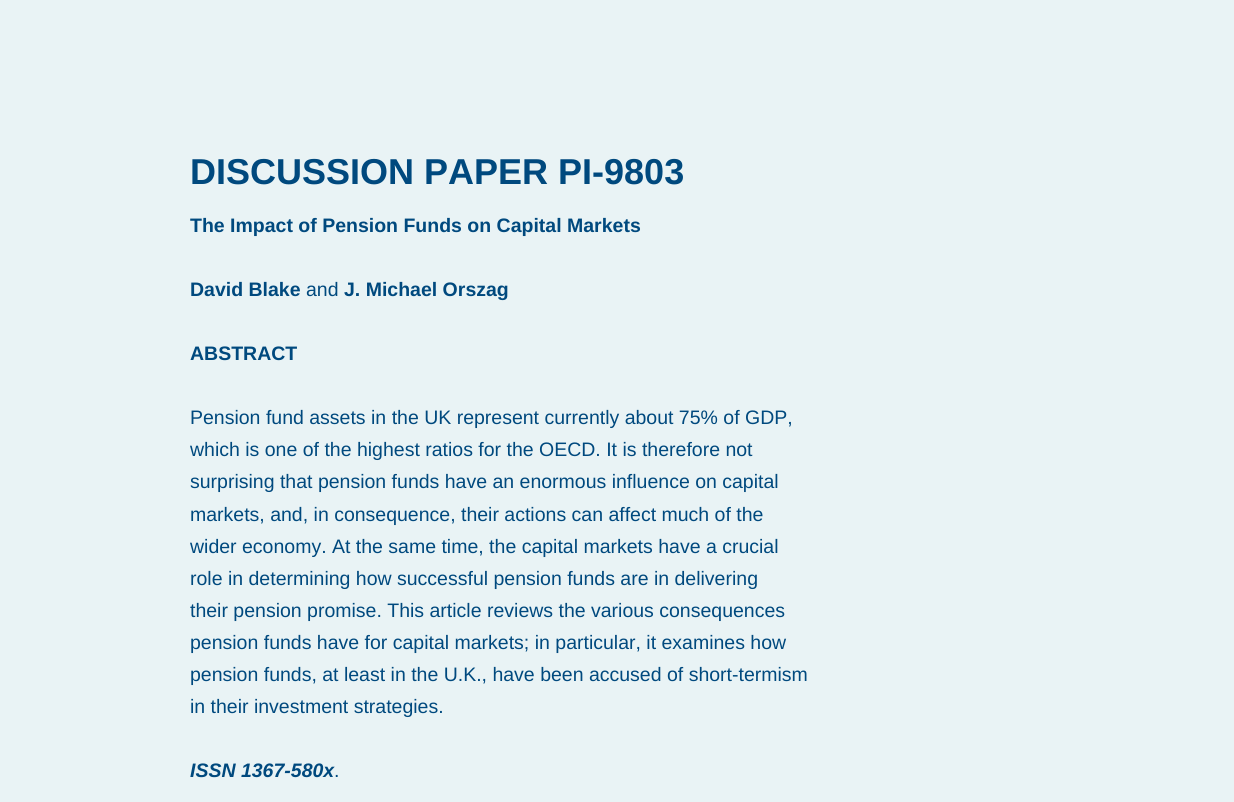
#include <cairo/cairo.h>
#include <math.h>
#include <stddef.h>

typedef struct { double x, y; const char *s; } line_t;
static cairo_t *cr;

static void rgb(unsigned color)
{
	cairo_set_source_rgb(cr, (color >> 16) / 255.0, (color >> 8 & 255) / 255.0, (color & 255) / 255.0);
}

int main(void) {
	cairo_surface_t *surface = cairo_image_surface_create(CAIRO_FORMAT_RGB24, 1234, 802);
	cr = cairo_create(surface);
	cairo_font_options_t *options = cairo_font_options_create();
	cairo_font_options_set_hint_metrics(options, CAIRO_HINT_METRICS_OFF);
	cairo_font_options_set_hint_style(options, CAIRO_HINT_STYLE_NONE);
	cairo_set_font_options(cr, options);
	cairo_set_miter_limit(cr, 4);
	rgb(0xe9f3f5);
	cairo_paint(cr);
	cairo_select_font_face(cr, "Liberation Sans", CAIRO_FONT_SLANT_NORMAL, CAIRO_FONT_WEIGHT_BOLD);
	cairo_set_font_size(cr, 36);
	rgb(0x00497e);
	cairo_move_to(cr, 190, 184);
	cairo_show_text(cr, "DISCUSSION PAPER PI-9803");
	cairo_set_font_size(cr, 19.5);
	cairo_move_to(cr, 190, 232);
	cairo_show_text(cr, "The Impact of Pension Funds on Capital Markets");
	cairo_move_to(cr, 190, 296);
	cairo_show_text(cr, "David Blake");
	cairo_select_font_face(cr, "Liberation Sans", CAIRO_FONT_SLANT_NORMAL, CAIRO_FONT_WEIGHT_NORMAL);
	cairo_move_to(cr, 306, 296);
	cairo_show_text(cr, "and");
	cairo_select_font_face(cr, "Liberation Sans", CAIRO_FONT_SLANT_NORMAL, CAIRO_FONT_WEIGHT_BOLD);
	cairo_move_to(cr, 344, 296);
	cairo_show_text(cr, "J. Michael Orszag");
	cairo_move_to(cr, 190, 360);
	cairo_show_text(cr, "ABSTRACT");
	cairo_select_font_face(cr, "Liberation Sans", CAIRO_FONT_SLANT_NORMAL, CAIRO_FONT_WEIGHT_NORMAL);
	{
		static const line_t items[] = {
			{190, 424, "Pension fund assets in the UK represent currently about 75% of GDP,"},
			{190, 456, "which is one of the highest ratios for the OECD. It is therefore not"},
			{190, 488, "surprising that pension funds have an enormous influence on capital"},
			{190, 521, "markets, and, in consequence, their actions can affect much of the"},
			{190, 553, "wider economy. At the same time, the capital markets have a crucial"},
			{190, 585, "role in determining how successful pension funds are in delivering"},
			{190, 617, "their pension promise. This article reviews the various consequences"},
			{190, 649, "pension funds have for capital markets; in particular, it examines how"},
			{190, 681, "pension funds, at least in the U.K., have been accused of short-termism"},
			{190, 713, "in their investment strategies."},
		};
		for (size_t i = 0; i < sizeof items / sizeof *items; i++) {
			cairo_move_to(cr, items[i].x, items[i].y);
			cairo_show_text(cr, items[i].s);
		}
	}
	cairo_select_font_face(cr, "Liberation Sans", CAIRO_FONT_SLANT_ITALIC, CAIRO_FONT_WEIGHT_BOLD);
	cairo_move_to(cr, 190, 777);
	cairo_show_text(cr, "ISSN 1367-580x");
	cairo_select_font_face(cr, "Liberation Sans", CAIRO_FONT_SLANT_NORMAL, CAIRO_FONT_WEIGHT_NORMAL);
	cairo_move_to(cr, 334, 777);
	cairo_show_text(cr, ".");
	cairo_surface_write_to_png(surface, "page.png");
	cairo_font_options_destroy(options);
	cairo_destroy(cr);
	cairo_surface_destroy(surface);
	return 0;
}
